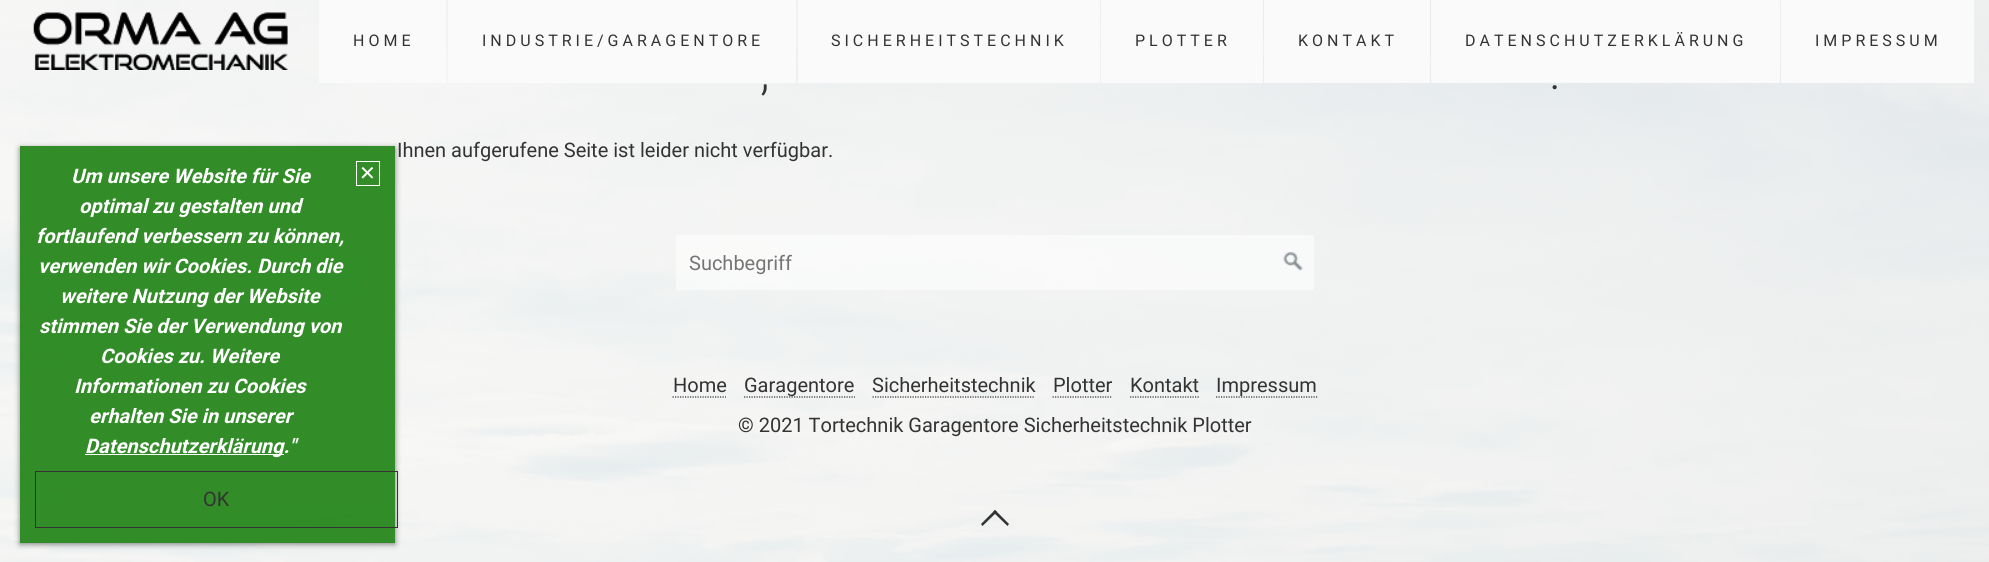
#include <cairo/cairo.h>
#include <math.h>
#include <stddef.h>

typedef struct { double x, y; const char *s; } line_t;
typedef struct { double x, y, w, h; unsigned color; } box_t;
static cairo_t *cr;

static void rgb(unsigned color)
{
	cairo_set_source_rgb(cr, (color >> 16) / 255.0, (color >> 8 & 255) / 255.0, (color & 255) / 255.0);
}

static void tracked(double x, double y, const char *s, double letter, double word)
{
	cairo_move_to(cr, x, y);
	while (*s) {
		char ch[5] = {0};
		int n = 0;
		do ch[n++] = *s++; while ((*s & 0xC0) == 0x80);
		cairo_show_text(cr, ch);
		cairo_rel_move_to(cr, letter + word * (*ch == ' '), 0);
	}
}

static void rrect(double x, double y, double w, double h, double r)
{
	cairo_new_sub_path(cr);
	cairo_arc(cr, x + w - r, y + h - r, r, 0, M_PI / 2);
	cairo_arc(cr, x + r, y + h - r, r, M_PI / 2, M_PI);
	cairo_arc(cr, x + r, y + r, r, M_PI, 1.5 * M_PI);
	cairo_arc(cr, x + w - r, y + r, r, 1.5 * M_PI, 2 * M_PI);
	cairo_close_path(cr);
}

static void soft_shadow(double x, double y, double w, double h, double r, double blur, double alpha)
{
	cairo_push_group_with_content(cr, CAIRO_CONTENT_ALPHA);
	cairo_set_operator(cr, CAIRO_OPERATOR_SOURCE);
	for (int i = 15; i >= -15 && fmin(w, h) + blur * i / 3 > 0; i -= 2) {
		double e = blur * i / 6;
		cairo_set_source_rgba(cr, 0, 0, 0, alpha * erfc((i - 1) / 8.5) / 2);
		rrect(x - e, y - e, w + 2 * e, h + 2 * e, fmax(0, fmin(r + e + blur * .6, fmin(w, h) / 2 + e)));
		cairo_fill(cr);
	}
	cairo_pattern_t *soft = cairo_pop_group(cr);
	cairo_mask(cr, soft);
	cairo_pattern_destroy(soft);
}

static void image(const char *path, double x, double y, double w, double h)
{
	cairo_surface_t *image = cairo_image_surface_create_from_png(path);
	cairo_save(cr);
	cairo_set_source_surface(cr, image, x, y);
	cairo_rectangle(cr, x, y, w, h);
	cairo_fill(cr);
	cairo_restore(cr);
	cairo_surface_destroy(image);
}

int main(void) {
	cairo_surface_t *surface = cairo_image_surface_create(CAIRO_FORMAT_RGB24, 1989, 562);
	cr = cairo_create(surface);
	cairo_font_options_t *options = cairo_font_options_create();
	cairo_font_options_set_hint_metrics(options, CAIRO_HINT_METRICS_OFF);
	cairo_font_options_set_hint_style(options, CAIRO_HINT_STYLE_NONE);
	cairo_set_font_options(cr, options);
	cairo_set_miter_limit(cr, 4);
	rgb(0xffffff);
	cairo_paint(cr);
	image("img/1.png", 0, 0, 1989, 562);
	cairo_set_source_rgba(cr, 1, 1, 1, 0.1);
	cairo_rectangle(cr, 1494, 0, 127, 69);
	cairo_fill(cr);
	image("img/2.png", 33, 12, 255, 58);
	{
		static const box_t items[] = {
			{319, 0, 127, 83, 0xfafafa},
			{448, 0, 348, 83, 0xfafafa},
			{798, 0, 302, 83, 0xfafafa},
			{1101, 0, 162, 83, 0xfafafa},
			{1264, 0, 166, 83, 0xfafafa},
			{1431, 0, 349, 83, 0xfafafa},
			{1781, 0, 193, 83, 0xfafafa},
		};
		for (size_t i = 0; i < sizeof items / sizeof *items; i++) {
			rgb(items[i].color);
			cairo_rectangle(cr, items[i].x, items[i].y, items[i].w, items[i].h);
			cairo_fill(cr);
		}
	}
	cairo_save(cr);
	cairo_set_fill_rule(cr, CAIRO_FILL_RULE_EVEN_ODD);
	cairo_new_path(cr);
	cairo_move_to(cr, 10, 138);
	cairo_line_to(cr, 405, 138);
	cairo_line_to(cr, 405, 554);
	cairo_line_to(cr, 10, 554);
	cairo_close_path(cr);
	cairo_move_to(cr, 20, 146);
	cairo_line_to(cr, 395, 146);
	cairo_line_to(cr, 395, 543);
	cairo_line_to(cr, 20, 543);
	cairo_close_path(cr);
	cairo_clip(cr);
	rgb(0x000000);
	soft_shadow(20, 148, 375, 396, 0, 3, 0.5);
	cairo_restore(cr);
	cairo_set_source_rgba(cr, 0.114, 0.51, 0.071, 0.9);
	cairo_rectangle(cr, 20, 146, 375, 397);
	cairo_fill(cr);
	rgb(0xffffff);
	cairo_rectangle(cr, 85, 454, 199, 1);
	cairo_fill(cr);
	cairo_rectangle(cr, 356.5, 161.5, 23, 24);
	cairo_set_line_width(cr, 1);
	cairo_stroke(cr);
	cairo_rectangle(cr, 35.5, 471.5, 362, 56);
	rgb(0x333333);
	cairo_stroke(cr);
	cairo_set_source_rgba(cr, 1, 1, 1, 0.5);
	cairo_rectangle(cr, 676, 235, 638, 55);
	cairo_fill(cr);
	image("img/3.png", 1283, 252, 20, 19);
	cairo_new_path(cr);
	cairo_move_to(cr, 672.5, 397);
	cairo_line_to(cr, 726, 397);
	rgb(0x333333);
	cairo_set_line_width(cr, 1.2);
	cairo_set_dash(cr, (double[]){1.25, 1.25}, 2, 0);
	cairo_stroke(cr);
	cairo_new_path(cr);
	cairo_move_to(cr, 744, 397);
	cairo_line_to(cr, 855, 397);
	cairo_stroke(cr);
	cairo_new_path(cr);
	cairo_move_to(cr, 872.5, 397);
	cairo_line_to(cr, 1035, 397);
	cairo_stroke(cr);
	cairo_new_path(cr);
	cairo_move_to(cr, 1052.5, 397);
	cairo_line_to(cr, 1112.5, 397);
	cairo_stroke(cr);
	cairo_new_path(cr);
	cairo_move_to(cr, 1130, 397);
	cairo_line_to(cr, 1199, 397);
	cairo_stroke(cr);
	cairo_new_path(cr);
	cairo_move_to(cr, 1216, 397);
	cairo_line_to(cr, 1317.5, 397);
	cairo_stroke(cr);
	cairo_new_path(cr);
	cairo_move_to(cr, 981, 524);
	cairo_line_to(cr, 995, 510);
	cairo_line_to(cr, 997, 512);
	cairo_line_to(cr, 982.5, 526);
	cairo_close_path(cr);
	cairo_fill(cr);
	cairo_new_path(cr);
	cairo_move_to(cr, 993, 512);
	cairo_line_to(cr, 995, 510);
	cairo_line_to(cr, 1009, 524);
	cairo_line_to(cr, 1007.5, 526);
	cairo_close_path(cr);
	cairo_fill(cr);
	cairo_select_font_face(cr, "Roboto", CAIRO_FONT_SLANT_NORMAL, CAIRO_FONT_WEIGHT_NORMAL);
	cairo_set_font_size(cr, 16);
	{
		static const line_t items[] = {
			{353, 46, "HOME"},
			{482, 46, "INDUSTRIE/GARAGENTORE"},
			{831, 46, "SICHERHEITSTECHNIK"},
			{1135, 46, "PLOTTER"},
			{1298, 46, "KONTAKT"},
			{1465, 46, "DATENSCHUTZERKLÄRUNG"},
			{1815, 46, "IMPRESSUM"},
		};
		for (size_t i = 0; i < sizeof items / sizeof *items; i++) {
			tracked(items[i].x, items[i].y, items[i].s, 4, 0);
		}
	}
	cairo_select_font_face(cr, "Roboto Light", CAIRO_FONT_SLANT_NORMAL, CAIRO_FONT_WEIGHT_NORMAL);
	cairo_set_font_size(cr, 50);
	cairo_move_to(cr, 760, 89);
	cairo_show_text(cr, ",");
	cairo_move_to(cr, 1549, 89);
	cairo_show_text(cr, ".");
	cairo_select_font_face(cr, "Roboto", CAIRO_FONT_SLANT_NORMAL, CAIRO_FONT_WEIGHT_NORMAL);
	cairo_set_font_size(cr, 20);
	cairo_move_to(cr, 397, 157);
	cairo_show_text(cr, "Ihnen aufgerufene Seite ist leider nicht verfügbar.");
	cairo_select_font_face(cr, "Roboto", CAIRO_FONT_SLANT_ITALIC, CAIRO_FONT_WEIGHT_BOLD);
	rgb(0xffffff);
	{
		static const line_t items[] = {
			{71, 183, "Um unsere Website für Sie"},
			{79, 213, "optimal zu gestalten und"},
			{36, 243, "fortlaufend verbessern zu können,"},
			{38, 273, "verwenden wir Cookies. Durch die"},
			{60, 303, "weitere Nutzung der Website"},
			{39, 333, "stimmen Sie der Verwendung von"},
			{100, 363, "Cookies zu. Weitere"},
			{74, 393, "Informationen zu Cookies"},
			{89, 423, "erhalten Sie in unserer"},
			{85, 453, "Datenschutzerklärung.\""},
		};
		for (size_t i = 0; i < sizeof items / sizeof *items; i++) {
			cairo_move_to(cr, items[i].x, items[i].y);
			cairo_show_text(cr, items[i].s);
		}
	}
	cairo_select_font_face(cr, "DejaVu Sans", CAIRO_FONT_SLANT_NORMAL, CAIRO_FONT_WEIGHT_NORMAL);
	cairo_move_to(cr, 359, 180);
	cairo_show_text(cr, "✕");
	cairo_select_font_face(cr, "Roboto", CAIRO_FONT_SLANT_NORMAL, CAIRO_FONT_WEIGHT_NORMAL);
	rgb(0x333333);
	cairo_move_to(cr, 203, 506);
	cairo_show_text(cr, "OK");
	rgb(0x757575);
	cairo_move_to(cr, 689, 270);
	cairo_show_text(cr, "Suchbegriff");
	rgb(0x333333);
	{
		static const line_t items[] = {
			{673, 392, "Home"},
			{744, 392, "Garagentore"},
			{872, 392, "Sicherheitstechnik"},
			{1053, 392, "Plotter"},
			{1130, 392, "Kontakt"},
			{1216, 392, "Impressum"},
			{738, 432, "© 2021 Tortechnik Garagentore Sicherheitstechnik Plotter"},
		};
		for (size_t i = 0; i < sizeof items / sizeof *items; i++) {
			cairo_move_to(cr, items[i].x, items[i].y);
			cairo_show_text(cr, items[i].s);
		}
	}
	cairo_surface_write_to_png(surface, "page.png");
	cairo_font_options_destroy(options);
	cairo_destroy(cr);
	cairo_surface_destroy(surface);
	return 0;
}
